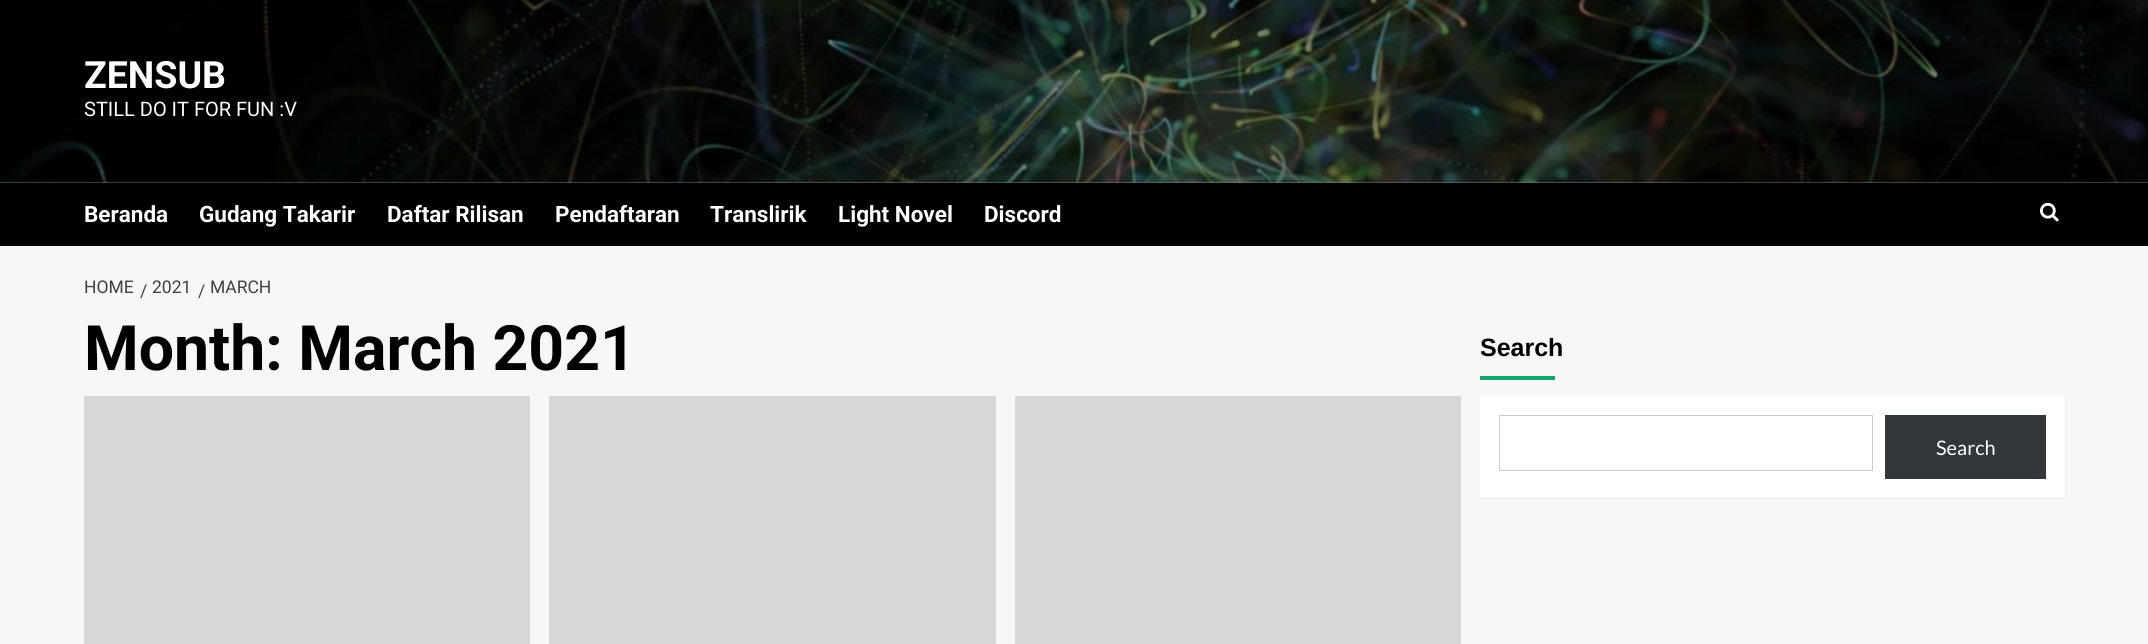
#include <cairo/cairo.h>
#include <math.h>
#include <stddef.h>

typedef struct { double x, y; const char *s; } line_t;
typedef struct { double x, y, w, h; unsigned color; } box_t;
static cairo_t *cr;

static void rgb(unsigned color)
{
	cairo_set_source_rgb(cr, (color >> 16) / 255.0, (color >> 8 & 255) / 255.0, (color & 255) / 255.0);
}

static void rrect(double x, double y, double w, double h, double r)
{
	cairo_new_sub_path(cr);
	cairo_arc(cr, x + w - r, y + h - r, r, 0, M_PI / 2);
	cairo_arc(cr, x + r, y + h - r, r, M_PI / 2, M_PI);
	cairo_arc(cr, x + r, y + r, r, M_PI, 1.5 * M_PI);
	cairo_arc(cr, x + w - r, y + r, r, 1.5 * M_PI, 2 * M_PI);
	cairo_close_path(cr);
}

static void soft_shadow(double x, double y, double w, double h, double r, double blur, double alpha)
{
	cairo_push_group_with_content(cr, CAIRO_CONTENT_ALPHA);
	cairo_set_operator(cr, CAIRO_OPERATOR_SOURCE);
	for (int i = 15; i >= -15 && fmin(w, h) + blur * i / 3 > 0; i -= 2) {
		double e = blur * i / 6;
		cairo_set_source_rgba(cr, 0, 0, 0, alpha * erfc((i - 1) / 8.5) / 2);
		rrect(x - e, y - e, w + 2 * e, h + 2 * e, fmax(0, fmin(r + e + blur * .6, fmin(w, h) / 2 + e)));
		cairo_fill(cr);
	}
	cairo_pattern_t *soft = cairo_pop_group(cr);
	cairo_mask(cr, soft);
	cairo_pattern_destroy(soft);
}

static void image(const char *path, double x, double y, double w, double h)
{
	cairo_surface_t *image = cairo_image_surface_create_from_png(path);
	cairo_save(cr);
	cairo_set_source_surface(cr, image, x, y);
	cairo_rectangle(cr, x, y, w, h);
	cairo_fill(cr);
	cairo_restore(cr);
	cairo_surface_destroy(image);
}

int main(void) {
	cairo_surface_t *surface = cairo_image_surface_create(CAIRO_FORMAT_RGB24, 2148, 644);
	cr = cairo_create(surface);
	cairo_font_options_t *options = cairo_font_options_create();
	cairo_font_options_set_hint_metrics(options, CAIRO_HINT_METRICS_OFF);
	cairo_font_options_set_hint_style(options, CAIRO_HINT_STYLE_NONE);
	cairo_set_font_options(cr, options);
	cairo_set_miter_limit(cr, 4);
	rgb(0xf7f7f7);
	cairo_paint(cr);
	rgb(0x7c7c7c);
	cairo_rectangle(cr, 0, 182, 2148, 1);
	cairo_fill(cr);
	image("img/1.png", 0, 0, 2148, 183);
	rgb(0x000000);
	cairo_rectangle(cr, 0, 183, 2148, 63);
	cairo_fill(cr);
	image("img/2.png", 2040, 202, 19, 20);
	{
		static const box_t items[] = {
			{84, 396, 446, 248, 0xd8d8d8},
			{549, 396, 447, 248, 0xd8d8d8},
			{1015, 396, 446, 248, 0xd8d8d8},
			{1480, 376, 75, 4, 0x12a86b},
		};
		for (size_t i = 0; i < sizeof items / sizeof *items; i++) {
			rgb(items[i].color);
			cairo_rectangle(cr, items[i].x, items[i].y, items[i].w, items[i].h);
			cairo_fill(cr);
		}
	}
	rgb(0x000000);
	soft_shadow(1480, 398, 585, 101, 0, 1, 0.05);
	rgb(0xffffff);
	cairo_rectangle(cr, 1480, 396, 585, 102);
	cairo_fill(cr);
	cairo_rectangle(cr, 1499.5, 415.5, 373, 55);
	rgb(0xcccccc);
	cairo_set_line_width(cr, 1);
	cairo_stroke(cr);
	rgb(0x32373c);
	cairo_rectangle(cr, 1885, 415, 161, 64);
	cairo_fill(cr);
	cairo_select_font_face(cr, "Roboto", CAIRO_FONT_SLANT_NORMAL, CAIRO_FONT_WEIGHT_BOLD);
	cairo_set_font_size(cr, 37.5);
	rgb(0xffffff);
	cairo_move_to(cr, 84, 88);
	cairo_show_text(cr, "ZENSUB");
	cairo_select_font_face(cr, "Roboto", CAIRO_FONT_SLANT_NORMAL, CAIRO_FONT_WEIGHT_NORMAL);
	cairo_set_font_size(cr, 20);
	cairo_move_to(cr, 84, 116);
	cairo_show_text(cr, "STILL DO IT FOR FUN :V");
	cairo_select_font_face(cr, "Roboto", CAIRO_FONT_SLANT_NORMAL, CAIRO_FONT_WEIGHT_BOLD);
	cairo_set_font_size(cr, 22.5);
	{
		static const line_t items[] = {
			{84, 222, "Beranda"},
			{199, 222, "Gudang Takarir"},
			{387, 222, "Daftar Rilisan"},
			{555, 222, "Pendaftaran"},
			{710, 222, "Translirik"},
			{838, 222, "Light Novel"},
			{984, 222, "Discord"},
		};
		for (size_t i = 0; i < sizeof items / sizeof *items; i++) {
			cairo_move_to(cr, items[i].x, items[i].y);
			cairo_show_text(cr, items[i].s);
		}
	}
	cairo_select_font_face(cr, "Roboto", CAIRO_FONT_SLANT_NORMAL, CAIRO_FONT_WEIGHT_NORMAL);
	cairo_set_font_size(cr, 17.5);
	rgb(0x404040);
	{
		static const line_t items[] = {
			{84, 293, "HOME"},
			{140, 297, "/"},
			{152, 293, "2021"},
			{198, 297, "/"},
			{210, 293, "MARCH"},
		};
		for (size_t i = 0; i < sizeof items / sizeof *items; i++) {
			cairo_move_to(cr, items[i].x, items[i].y);
			cairo_show_text(cr, items[i].s);
		}
	}
	cairo_select_font_face(cr, "Roboto", CAIRO_FONT_SLANT_NORMAL, CAIRO_FONT_WEIGHT_BOLD);
	cairo_set_font_size(cr, 62.5);
	rgb(0x000000);
	cairo_move_to(cr, 84, 370);
	cairo_show_text(cr, "Month: March 2021");
	cairo_select_font_face(cr, "Liberation Sans", CAIRO_FONT_SLANT_NORMAL, CAIRO_FONT_WEIGHT_BOLD);
	cairo_set_font_size(cr, 25);
	cairo_move_to(cr, 1480, 356);
	cairo_show_text(cr, "Search");
	cairo_select_font_face(cr, "Lato", CAIRO_FONT_SLANT_NORMAL, CAIRO_FONT_WEIGHT_NORMAL);
	cairo_set_font_size(cr, 20);
	rgb(0xffffff);
	cairo_move_to(cr, 1936, 455);
	cairo_show_text(cr, "Search");
	cairo_surface_write_to_png(surface, "page.png");
	cairo_font_options_destroy(options);
	cairo_destroy(cr);
	cairo_surface_destroy(surface);
	return 0;
}
